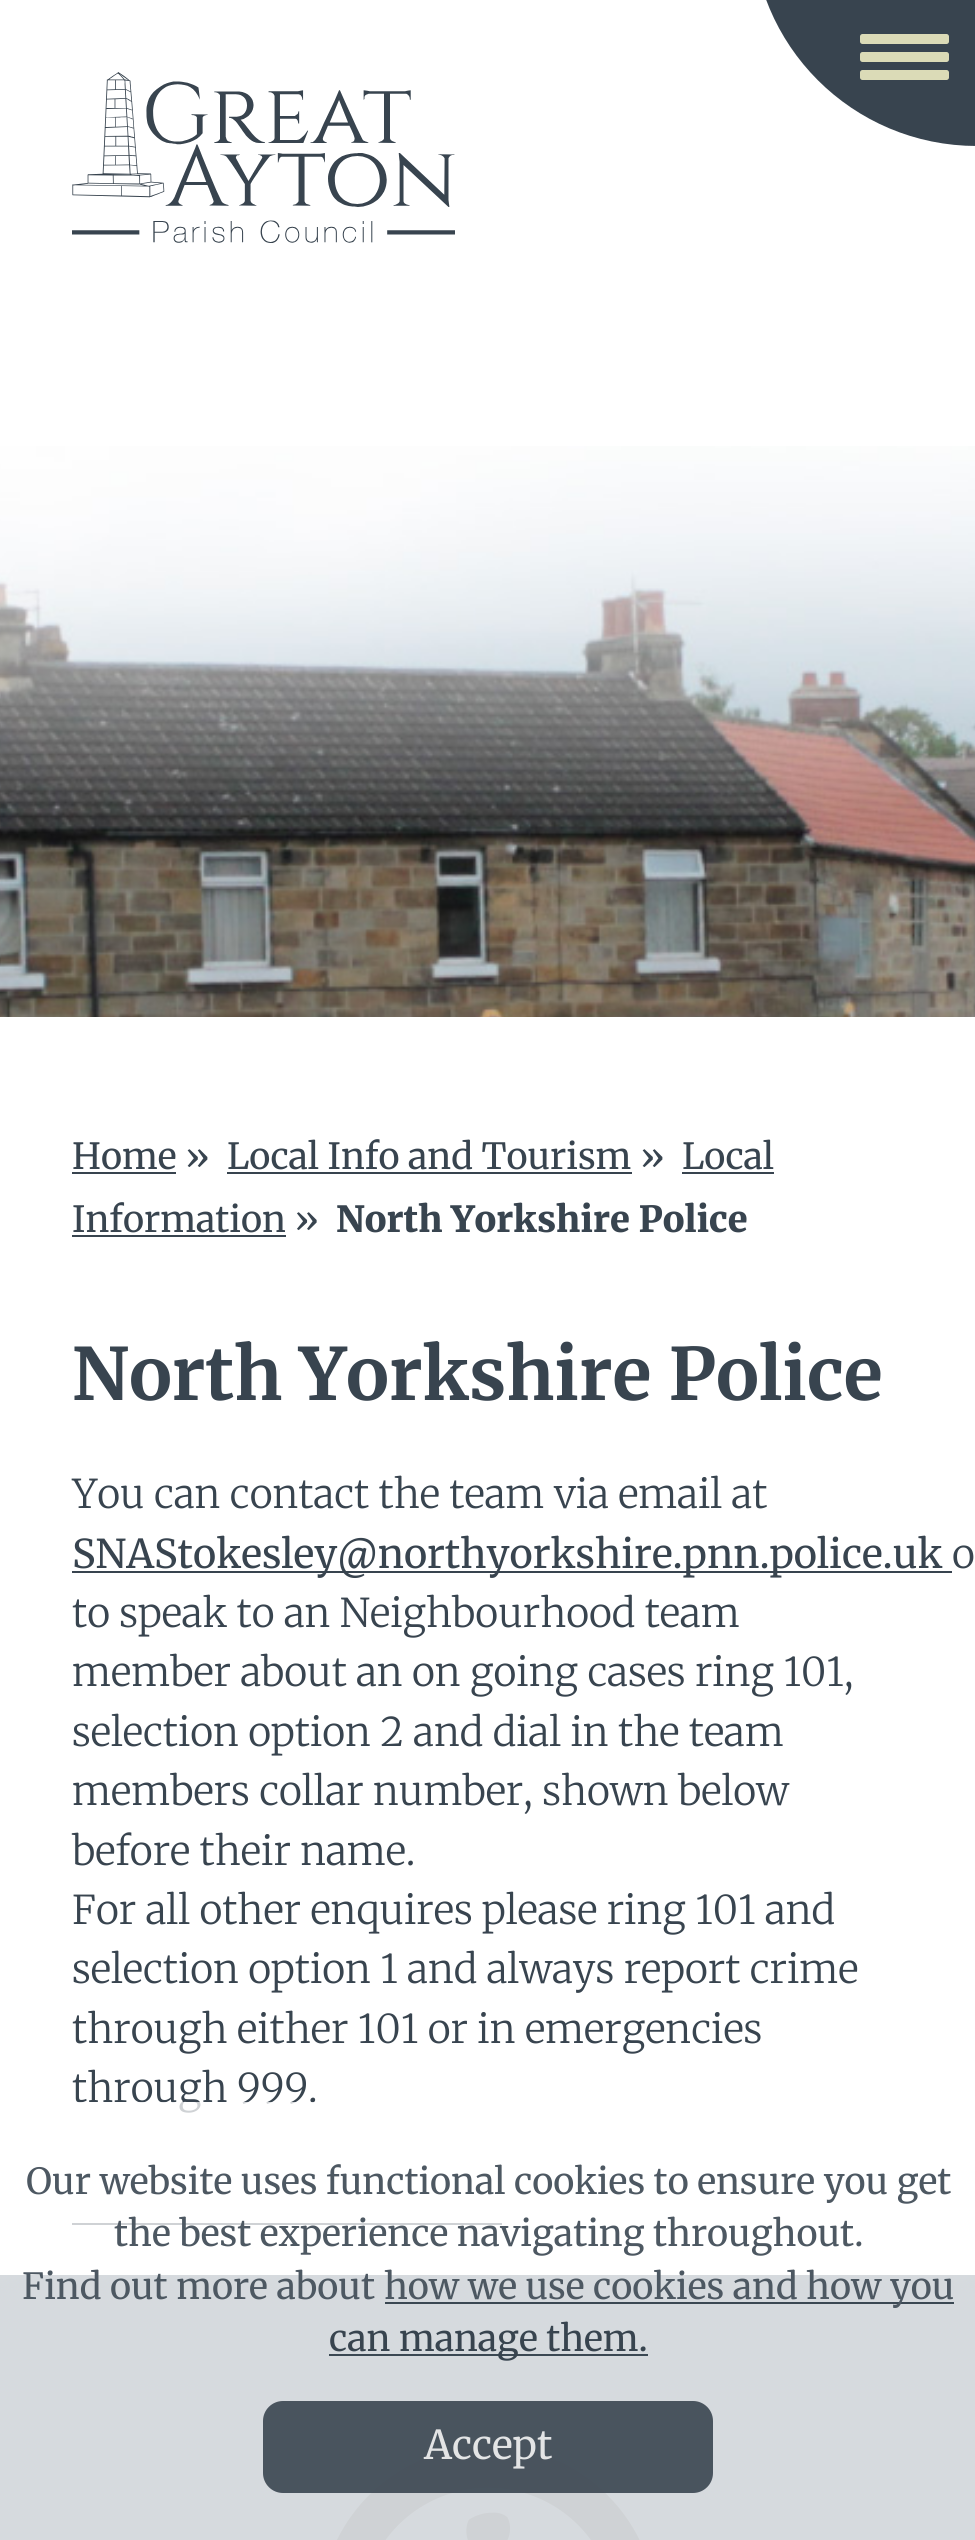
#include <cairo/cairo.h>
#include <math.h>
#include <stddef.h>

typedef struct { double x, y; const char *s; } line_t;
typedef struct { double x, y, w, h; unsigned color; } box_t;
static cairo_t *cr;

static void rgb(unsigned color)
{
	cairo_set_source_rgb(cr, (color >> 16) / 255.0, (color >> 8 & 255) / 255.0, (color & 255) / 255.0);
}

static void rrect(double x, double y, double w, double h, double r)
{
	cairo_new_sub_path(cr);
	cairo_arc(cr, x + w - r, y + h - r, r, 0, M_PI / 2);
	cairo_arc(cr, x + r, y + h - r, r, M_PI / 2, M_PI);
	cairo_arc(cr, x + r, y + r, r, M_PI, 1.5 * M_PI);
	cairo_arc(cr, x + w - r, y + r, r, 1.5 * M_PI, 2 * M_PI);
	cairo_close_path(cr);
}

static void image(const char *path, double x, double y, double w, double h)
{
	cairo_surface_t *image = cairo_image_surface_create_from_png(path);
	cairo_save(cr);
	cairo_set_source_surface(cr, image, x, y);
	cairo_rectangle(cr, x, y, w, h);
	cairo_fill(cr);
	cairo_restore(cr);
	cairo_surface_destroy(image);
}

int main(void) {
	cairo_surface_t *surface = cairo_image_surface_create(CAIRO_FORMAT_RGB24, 975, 2540);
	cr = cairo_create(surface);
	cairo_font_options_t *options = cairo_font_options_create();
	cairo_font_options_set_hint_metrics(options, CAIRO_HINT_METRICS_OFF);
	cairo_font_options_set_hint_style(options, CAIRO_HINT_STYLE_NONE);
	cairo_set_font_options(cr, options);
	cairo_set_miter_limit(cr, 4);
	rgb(0xffffff);
	cairo_paint(cr);
	rgb(0x38444f);
	cairo_new_path(cr);
	cairo_move_to(cr, 752, -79);
	cairo_line_to(cr, 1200, -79);
	cairo_curve_to(cr, 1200, 45.5, 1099.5, 146, 975, 146);
	cairo_line_to(cr, 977, 146);
	cairo_curve_to(cr, 852.5, 146, 752, 45.5, 752, -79);
	cairo_close_path(cr);
	cairo_fill(cr);
	rgb(0xdbdbb7);
	rrect(860, 34, 89, 10, 2.5);
	cairo_fill(cr);
	rrect(860, 52, 89, 10, 2.5);
	cairo_fill(cr);
	rrect(860, 70, 89, 10, 2.5);
	cairo_fill(cr);
	image("img/1.png", 0, 446, 975, 571);
	image("img/2.png", 72, 72, 383, 171);
	{
		static const box_t items[] = {
			{72, 1172, 104, 2, 0x38444f},
			{227, 1172, 405, 2, 0x38444f},
			{682, 1172, 92, 2, 0x38444f},
			{72, 1235, 214, 2, 0x38444f},
			{72, 1571, 880, 2, 0x38444f},
			{72, 2223, 430, 2, 0x38444f},
			{0, 2275, 975, 265, 0x546676},
		};
		for (size_t i = 0; i < sizeof items / sizeof *items; i++) {
			rgb(items[i].color);
			cairo_rectangle(cr, items[i].x, items[i].y, items[i].w, items[i].h);
			cairo_fill(cr);
		}
	}
	image("img/3.png", 337, 2446, 303, 94);
	cairo_select_font_face(cr, "Merriweather", CAIRO_FONT_SLANT_NORMAL, CAIRO_FONT_WEIGHT_NORMAL);
	cairo_set_font_size(cr, 36);
	rgb(0x38444f);
	{
		static const line_t items[] = {
			{72, 1169, "Home »"},
			{227, 1169, "Local Info and Tourism »"},
			{682, 1169, "Local"},
			{72, 1232, "Information »"},
		};
		for (size_t i = 0; i < sizeof items / sizeof *items; i++) {
			cairo_move_to(cr, items[i].x, items[i].y);
			cairo_show_text(cr, items[i].s);
		}
	}
	cairo_select_font_face(cr, "Merriweather Black", CAIRO_FONT_SLANT_NORMAL, CAIRO_FONT_WEIGHT_NORMAL);
	cairo_move_to(cr, 336, 1232);
	cairo_show_text(cr, "North Yorkshire Police");
	cairo_select_font_face(cr, "Merriweather", CAIRO_FONT_SLANT_NORMAL, CAIRO_FONT_WEIGHT_BOLD);
	cairo_set_font_size(cr, 72);
	cairo_move_to(cr, 72, 1400);
	cairo_show_text(cr, "North Yorkshire Police");
	cairo_select_font_face(cr, "Merriweather Light", CAIRO_FONT_SLANT_NORMAL, CAIRO_FONT_WEIGHT_NORMAL);
	cairo_set_font_size(cr, 39.6);
	cairo_move_to(cr, 72, 1508);
	cairo_show_text(cr, "You can contact the team via email at");
	cairo_select_font_face(cr, "Merriweather", CAIRO_FONT_SLANT_NORMAL, CAIRO_FONT_WEIGHT_NORMAL);
	cairo_move_to(cr, 72, 1568);
	cairo_show_text(cr, "SNAStokesley@northyorkshire.pnn.police.uk");
	cairo_select_font_face(cr, "Merriweather Light", CAIRO_FONT_SLANT_NORMAL, CAIRO_FONT_WEIGHT_NORMAL);
	{
		static const line_t items[] = {
			{952, 1568, "o"},
			{72, 1627, "to speak to an Neighbourhood team"},
			{72, 1686, "member about an on going cases ring 101,"},
			{72, 1746, "selection option 2 and dial in the team"},
			{72, 1805, "members collar number, shown below"},
			{72, 1865, "before their name."},
			{72, 1924, "For all other enquires please ring 101 and"},
			{72, 1983, "selection option 1 and always report crime"},
			{72, 2043, "through either 101 or in emergencies"},
			{72, 2102, "through 999."},
		};
		for (size_t i = 0; i < sizeof items / sizeof *items; i++) {
			cairo_move_to(cr, items[i].x, items[i].y);
			cairo_show_text(cr, items[i].s);
		}
	}
	cairo_set_source_rgba(cr, 1, 1, 1, 0.76);
	cairo_rectangle(cr, 0, 2102, 975, 438);
	cairo_fill(cr);
	cairo_select_font_face(cr, "Merriweather", CAIRO_FONT_SLANT_NORMAL, CAIRO_FONT_WEIGHT_NORMAL);
	cairo_set_font_size(cr, 36);
	rgb(0x4d5862);
	{
		static const line_t items[] = {
			{26, 2194, "Our website uses functional cookies to ensure you get"},
			{114, 2246, "the best experience navigating throughout."},
			{22, 2299, "Find out more about"},
		};
		for (size_t i = 0; i < sizeof items / sizeof *items; i++) {
			cairo_move_to(cr, items[i].x, items[i].y);
			cairo_show_text(cr, items[i].s);
		}
	}
	rgb(0x3b4853);
	cairo_rectangle(cr, 385, 2302, 569, 2);
	cairo_fill(cr);
	rgb(0x4d5862);
	cairo_move_to(cr, 384, 2299);
	cairo_show_text(cr, "how we use cookies and how you");
	rgb(0x3b4853);
	cairo_rectangle(cr, 329, 2354, 319, 2);
	cairo_fill(cr);
	rgb(0x38444f);
	cairo_move_to(cr, 329, 2351);
	cairo_show_text(cr, "can manage them.");
	cairo_set_source_rgba(cr, 0.22, 0.267, 0.31, 0.89);
	rrect(263, 2401, 450, 92, 20);
	cairo_fill(cr);
	cairo_set_font_size(cr, 39.6);
	rgb(0xe3e4e5);
	cairo_move_to(cr, 424, 2459);
	cairo_show_text(cr, "Accept");
	cairo_surface_write_to_png(surface, "page.png");
	cairo_font_options_destroy(options);
	cairo_destroy(cr);
	cairo_surface_destroy(surface);
	return 0;
}
